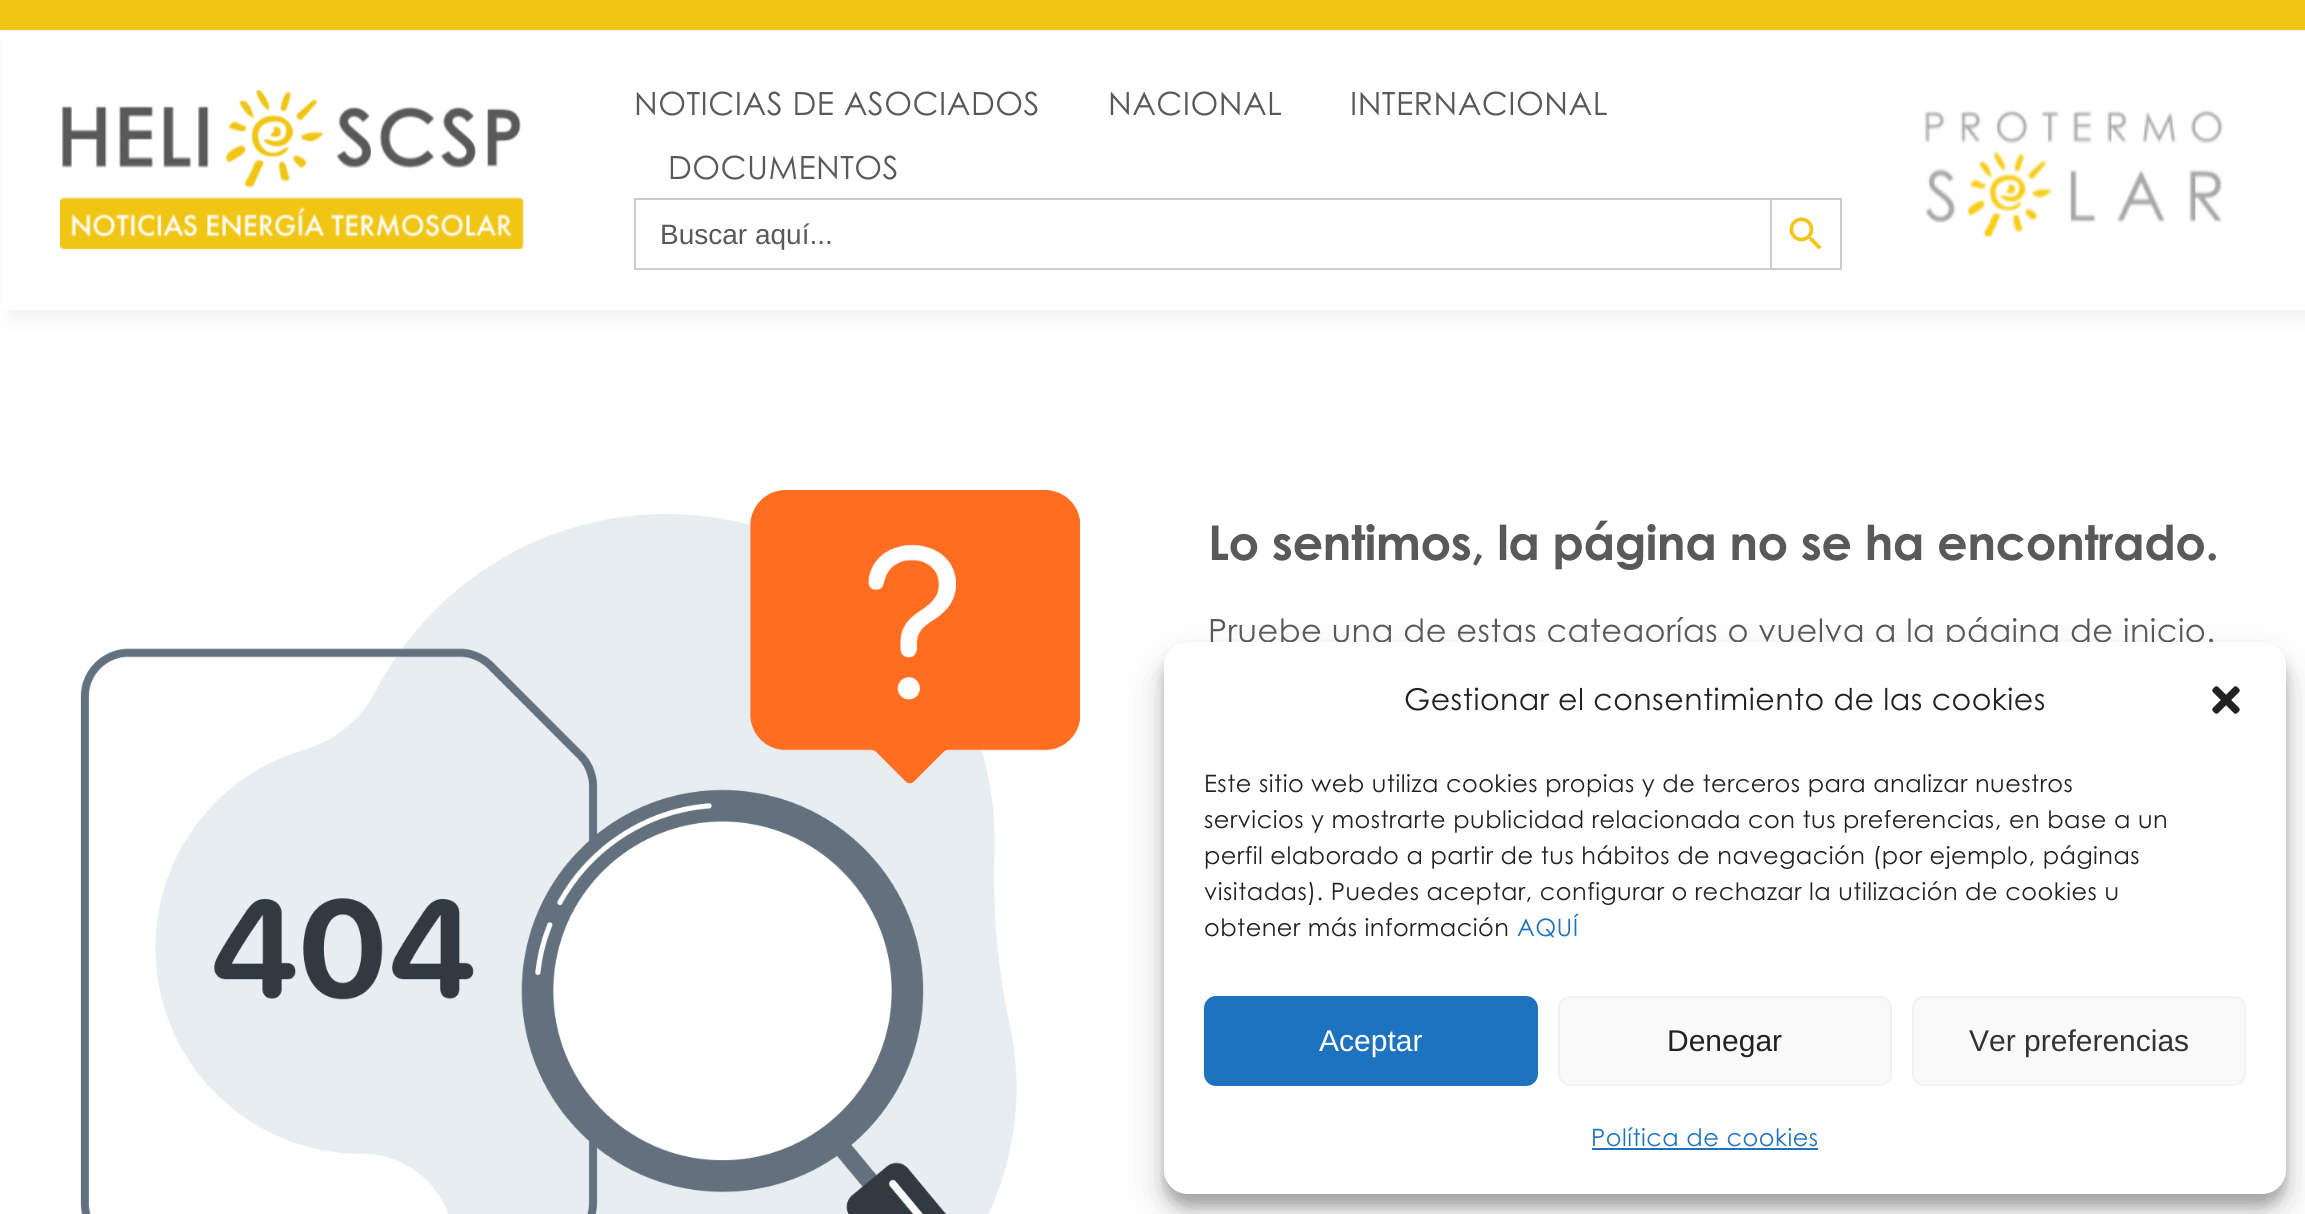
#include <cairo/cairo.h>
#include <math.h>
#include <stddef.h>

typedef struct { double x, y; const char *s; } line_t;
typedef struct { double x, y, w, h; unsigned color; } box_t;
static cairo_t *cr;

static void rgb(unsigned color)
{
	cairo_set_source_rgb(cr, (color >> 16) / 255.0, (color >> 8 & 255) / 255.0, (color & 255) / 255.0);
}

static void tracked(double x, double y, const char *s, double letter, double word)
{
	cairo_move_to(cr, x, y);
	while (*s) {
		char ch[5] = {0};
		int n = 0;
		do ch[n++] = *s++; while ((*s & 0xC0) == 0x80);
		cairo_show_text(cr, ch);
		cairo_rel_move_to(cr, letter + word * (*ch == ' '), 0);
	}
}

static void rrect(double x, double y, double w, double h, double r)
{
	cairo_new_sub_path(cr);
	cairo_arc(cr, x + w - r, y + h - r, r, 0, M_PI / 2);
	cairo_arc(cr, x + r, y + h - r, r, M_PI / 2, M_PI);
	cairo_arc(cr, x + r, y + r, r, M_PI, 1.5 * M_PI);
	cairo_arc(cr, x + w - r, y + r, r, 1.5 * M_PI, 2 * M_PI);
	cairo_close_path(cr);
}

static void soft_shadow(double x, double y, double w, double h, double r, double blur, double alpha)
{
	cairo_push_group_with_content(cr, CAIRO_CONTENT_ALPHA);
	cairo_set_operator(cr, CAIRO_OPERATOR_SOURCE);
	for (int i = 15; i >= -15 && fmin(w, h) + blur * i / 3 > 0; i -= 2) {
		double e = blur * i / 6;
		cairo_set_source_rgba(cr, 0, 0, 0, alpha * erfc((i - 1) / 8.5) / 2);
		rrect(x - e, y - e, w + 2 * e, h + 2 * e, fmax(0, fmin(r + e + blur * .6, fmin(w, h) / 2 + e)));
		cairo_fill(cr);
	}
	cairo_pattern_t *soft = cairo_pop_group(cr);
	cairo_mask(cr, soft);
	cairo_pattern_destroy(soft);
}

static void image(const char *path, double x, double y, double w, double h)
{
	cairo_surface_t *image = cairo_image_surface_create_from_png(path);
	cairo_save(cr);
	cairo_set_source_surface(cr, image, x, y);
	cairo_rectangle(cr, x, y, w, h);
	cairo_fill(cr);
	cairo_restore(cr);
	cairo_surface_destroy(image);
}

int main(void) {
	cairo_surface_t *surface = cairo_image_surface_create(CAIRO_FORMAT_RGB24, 2305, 1214);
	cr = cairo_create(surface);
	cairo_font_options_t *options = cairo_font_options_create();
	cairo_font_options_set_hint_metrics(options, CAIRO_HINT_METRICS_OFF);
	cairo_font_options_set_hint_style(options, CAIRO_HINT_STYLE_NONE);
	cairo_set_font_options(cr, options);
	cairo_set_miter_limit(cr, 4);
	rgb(0xffffff);
	cairo_paint(cr);
	rgb(0xf0c514);
	cairo_rectangle(cr, 0, 0, 2305, 30);
	cairo_fill(cr);
	rgb(0x020303);
	soft_shadow(10, 40, 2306, 280, 0, 10, 0.05);
	rgb(0xffffff);
	cairo_rectangle(cr, 2, 32, 2303, 278);
	cairo_fill(cr);
	image("img/1.png", 60, 90, 464, 160);
	{
		static const box_t items[] = {
			{634, 198, 1136, 2, 0xcccccc},
			{634, 268, 1136, 2, 0xcccccc},
			{634, 198, 2, 72, 0xcccccc},
		};
		for (size_t i = 0; i < sizeof items / sizeof *items; i++) {
			rgb(items[i].color);
			cairo_rectangle(cr, items[i].x, items[i].y, items[i].w, items[i].h);
			cairo_fill(cr);
		}
	}
	cairo_rectangle(cr, 1771, 199, 70, 70);
	cairo_stroke(cr);
	image("img/2.png", 1789, 217, 33, 33);
	image("img/3.png", 1924, 110, 300, 128);
	image("img/4.png", 80, 490, 1000, 724);
	rgb(0x000000);
	soft_shadow(1164, 654, 1122, 552, 24, 6, 0.23);
	soft_shadow(1164, 662, 1122, 552, 24, 20, 0.19);
	cairo_select_font_face(cr, "Century Gothic", CAIRO_FONT_SLANT_NORMAL, CAIRO_FONT_WEIGHT_NORMAL);
	cairo_set_font_size(cr, 32);
	rgb(0x595959);
	{
		static const line_t items[] = {
			{634, 115, "NOTICIAS DE ASOCIADOS"},
			{1108, 115, "NACIONAL"},
			{1350, 115, "INTERNACIONAL"},
			{668, 179, "DOCUMENTOS"},
		};
		for (size_t i = 0; i < sizeof items / sizeof *items; i++) {
			tracked(items[i].x, items[i].y, items[i].s, 0.48, 0);
		}
	}
	cairo_select_font_face(cr, "Liberation Sans", CAIRO_FONT_SLANT_NORMAL, CAIRO_FONT_WEIGHT_NORMAL);
	cairo_set_font_size(cr, 28);
	cairo_move_to(cr, 660, 244);
	cairo_show_text(cr, "Buscar aquí...");
	cairo_select_font_face(cr, "Century Gothic", CAIRO_FONT_SLANT_NORMAL, CAIRO_FONT_WEIGHT_BOLD);
	cairo_set_font_size(cr, 48);
	tracked(1208, 560, "Lo sentimos, la página no se ha encontrado.", -0.5, 0);
	cairo_select_font_face(cr, "Century Gothic", CAIRO_FONT_SLANT_NORMAL, CAIRO_FONT_WEIGHT_NORMAL);
	cairo_set_font_size(cr, 32);
	tracked(1208, 642, "Pruebe una de estas categorías o vuelva a la página de inicio.", 0.48, 0);
	rgb(0xffffff);
	rrect(1164, 642, 1122, 552, 24);
	cairo_fill(cr);
	cairo_set_font_size(cr, 30);
	rgb(0x222222);
	tracked(1404, 710, "Gestionar el consentimiento de las cookies", 0.48, 0);
	image("img/5.png", 2212, 686, 28, 28);
	cairo_set_font_size(cr, 24);
	{
		static const line_t items[] = {
			{1204, 792, "Este sitio web utiliza cookies propias y de terceros para analizar nuestros"},
			{1204, 828, "servicios y mostrarte publicidad relacionada con tus preferencias, en base a un"},
			{1204, 864, "perfil elaborado a partir de tus hábitos de navegación (por ejemplo, páginas"},
			{1204, 900, "visitadas). Puedes aceptar, configurar o rechazar la utilización de cookies u"},
			{1204, 936, "obtener más información"},
		};
		for (size_t i = 0; i < sizeof items / sizeof *items; i++) {
			tracked(items[i].x, items[i].y, items[i].s, 0.48, 0);
		}
	}
	rgb(0x1e73be);
	tracked(1517, 936, "AQUÍ", 0.48, 0);
	rrect(1205, 997, 332, 88, 11);
	cairo_fill_preserve(cr);
	cairo_stroke(cr);
	cairo_select_font_face(cr, "Liberation Sans", CAIRO_FONT_SLANT_NORMAL, CAIRO_FONT_WEIGHT_NORMAL);
	cairo_set_font_size(cr, 30);
	rgb(0xffffff);
	cairo_move_to(cr, 1319, 1051);
	cairo_show_text(cr, "Aceptar");
	rgb(0xf9f9f9);
	rrect(1559, 997, 332, 88, 11);
	cairo_fill_preserve(cr);
	rgb(0xf2f2f2);
	cairo_stroke(cr);
	rgb(0x222222);
	cairo_move_to(cr, 1667, 1051);
	cairo_show_text(cr, "Denegar");
	rgb(0xf9f9f9);
	rrect(1913, 997, 332, 88, 11);
	cairo_fill_preserve(cr);
	rgb(0xf2f2f2);
	cairo_stroke(cr);
	rgb(0x333333);
	cairo_move_to(cr, 1969, 1051);
	cairo_show_text(cr, "Ver preferencias");
	cairo_select_font_face(cr, "Century Gothic", CAIRO_FONT_SLANT_NORMAL, CAIRO_FONT_WEIGHT_NORMAL);
	cairo_set_font_size(cr, 24);
	rgb(0x1e73be);
	tracked(1591, 1146, "Política de cookies", 0.48, 0);
	cairo_rectangle(cr, 1592, 1148, 226, 2);
	cairo_fill(cr);
	cairo_surface_write_to_png(surface, "page.png");
	cairo_font_options_destroy(options);
	cairo_destroy(cr);
	cairo_surface_destroy(surface);
	return 0;
}
